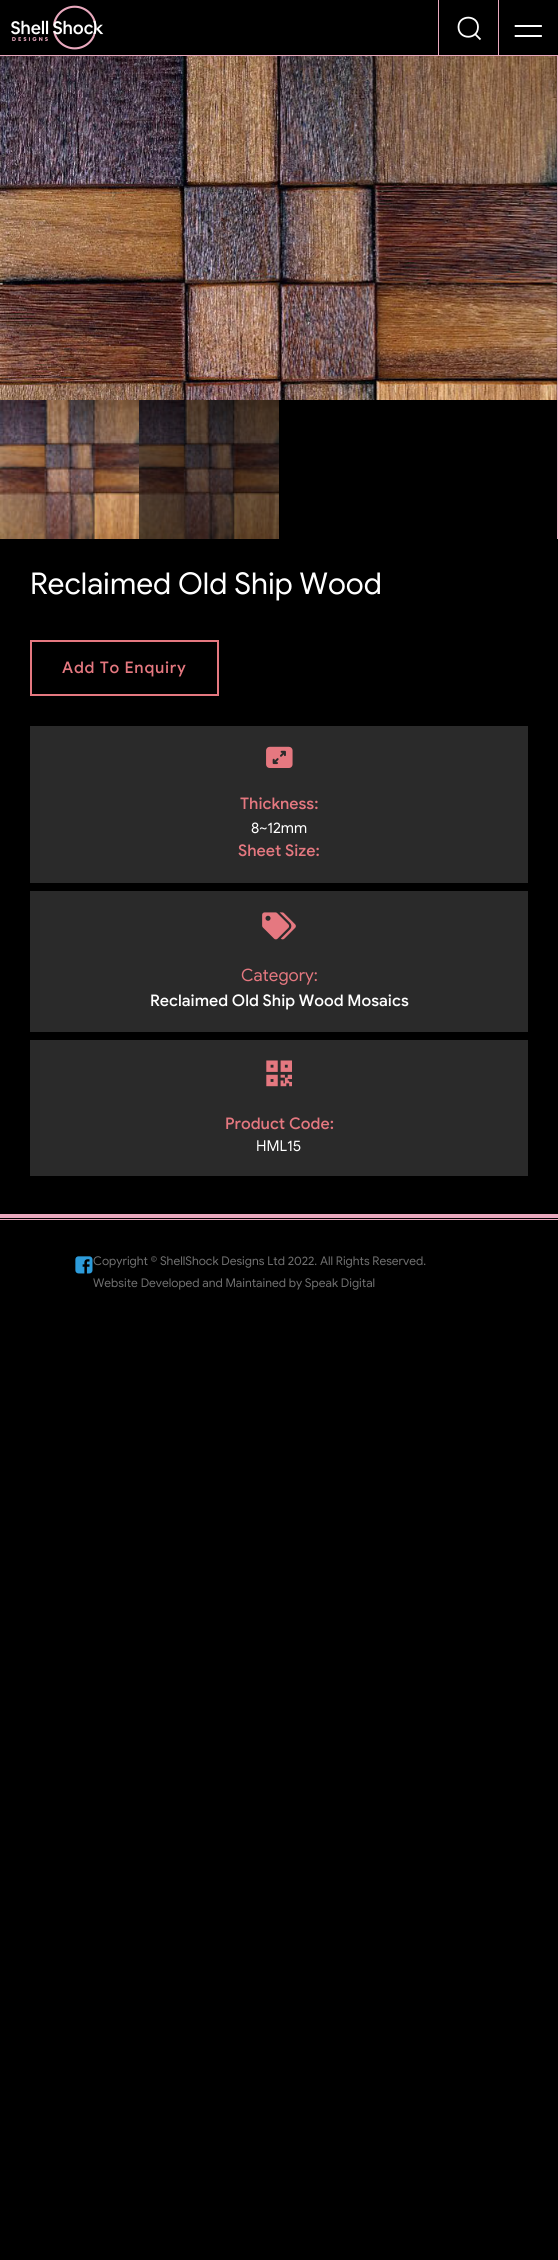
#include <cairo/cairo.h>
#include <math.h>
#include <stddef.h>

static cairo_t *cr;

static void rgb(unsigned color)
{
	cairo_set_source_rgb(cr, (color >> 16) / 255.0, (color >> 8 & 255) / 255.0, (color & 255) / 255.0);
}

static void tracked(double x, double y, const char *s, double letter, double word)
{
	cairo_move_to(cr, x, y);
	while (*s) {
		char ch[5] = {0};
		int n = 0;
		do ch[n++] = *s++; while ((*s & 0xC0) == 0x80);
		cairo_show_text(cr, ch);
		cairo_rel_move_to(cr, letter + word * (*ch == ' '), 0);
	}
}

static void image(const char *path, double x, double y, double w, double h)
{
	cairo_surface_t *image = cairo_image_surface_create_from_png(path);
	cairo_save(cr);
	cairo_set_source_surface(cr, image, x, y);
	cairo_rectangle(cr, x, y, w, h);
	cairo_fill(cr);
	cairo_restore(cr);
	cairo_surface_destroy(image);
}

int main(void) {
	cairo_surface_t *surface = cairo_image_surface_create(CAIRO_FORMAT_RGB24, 558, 2260);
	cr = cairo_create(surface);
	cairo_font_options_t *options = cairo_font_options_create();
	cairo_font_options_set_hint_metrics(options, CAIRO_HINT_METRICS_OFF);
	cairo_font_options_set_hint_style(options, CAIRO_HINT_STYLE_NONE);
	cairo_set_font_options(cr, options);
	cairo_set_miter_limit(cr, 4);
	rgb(0x000000);
	cairo_paint(cr);
	rgb(0xe9a9be);
	cairo_rectangle(cr, 438, 0, 1, 55);
	cairo_fill(cr);
	cairo_new_path(cr);
	cairo_move_to(cr, 480.5, 39.5);
	cairo_line_to(cr, 475, 34);
	cairo_close_path(cr);
	cairo_move_to(cr, 478, 27);
	cairo_curve_to(cr, 478, 40, 458.5, 40, 458.5, 27);
	cairo_curve_to(cr, 458.5, 14.5, 478, 14.5, 478, 27);
	cairo_close_path(cr);
	rgb(0xffffff);
	cairo_set_line_width(cr, 1.8);
	cairo_set_line_cap(cr, CAIRO_LINE_CAP_ROUND);
	cairo_stroke(cr);
	rgb(0xe9a9be);
	cairo_rectangle(cr, 498, 0, 1, 55);
	cairo_fill(cr);
	image("img/1.png", 514, 25, 28, 12);
	cairo_rectangle(cr, 0, 55, 558, 1);
	cairo_fill(cr);
	image("img/2.png", 11, 5, 93, 45);
	cairo_rectangle(cr, 0, 1214, 558, 4);
	cairo_fill(cr);
	cairo_rectangle(cr, 557, 56, 1, 483);
	cairo_fill(cr);
	image("img/3.png", 0, 56, 557, 344);
	image("img/4.png", 0, 400, 139, 139);
	image("img/5.png", 139, 400, 140, 139);
	cairo_rectangle(cr, 31, 641, 187, 54);
	rgb(0xe57880);
	cairo_set_line_width(cr, 2);
	cairo_set_line_cap(cr, CAIRO_LINE_CAP_BUTT);
	cairo_stroke(cr);
	rgb(0x2a2a2a);
	cairo_rectangle(cr, 30, 726, 498, 157);
	cairo_fill(cr);
	image("img/6.png", 266, 746, 27, 22);
	cairo_rectangle(cr, 30, 891, 498, 141);
	cairo_fill(cr);
	image("img/7.png", 262, 912, 34, 28);
	cairo_rectangle(cr, 30, 1040, 498, 136);
	cairo_fill(cr);
	image("img/8.png", 266, 1060, 26, 27);
	rgb(0xe9a9be);
	cairo_rectangle(cr, 0, 1219, 558, 1);
	cairo_fill(cr);
	image("img/9.png", 75, 1256, 18, 18);
	cairo_select_font_face(cr, "Google Sans", CAIRO_FONT_SLANT_NORMAL, CAIRO_FONT_WEIGHT_NORMAL);
	cairo_set_font_size(cr, 30);
	rgb(0xffffff);
	cairo_move_to(cr, 30, 594);
	cairo_show_text(cr, "Reclaimed Old Ship Wood");
	cairo_select_font_face(cr, "Google Sans Medium", CAIRO_FONT_SLANT_NORMAL, CAIRO_FONT_WEIGHT_NORMAL);
	cairo_set_font_size(cr, 16);
	rgb(0xe57880);
	tracked(62, 673, "Add To Enquiry", 0.75, 0);
	cairo_move_to(cr, 240, 809);
	cairo_show_text(cr, "Thickness:");
	cairo_select_font_face(cr, "Google Sans", CAIRO_FONT_SLANT_NORMAL, CAIRO_FONT_WEIGHT_NORMAL);
	cairo_set_font_size(cr, 15);
	rgb(0xffffff);
	cairo_move_to(cr, 251, 833);
	cairo_show_text(cr, "8~12mm");
	cairo_select_font_face(cr, "Google Sans Medium", CAIRO_FONT_SLANT_NORMAL, CAIRO_FONT_WEIGHT_NORMAL);
	cairo_set_font_size(cr, 16);
	rgb(0xe57880);
	cairo_move_to(cr, 238, 856);
	cairo_show_text(cr, "Sheet Size:");
	cairo_select_font_face(cr, "Google Sans", CAIRO_FONT_SLANT_NORMAL, CAIRO_FONT_WEIGHT_NORMAL);
	cairo_set_font_size(cr, 17);
	cairo_move_to(cr, 241, 981);
	cairo_show_text(cr, "Category:");
	cairo_select_font_face(cr, "Google Sans Medium", CAIRO_FONT_SLANT_NORMAL, CAIRO_FONT_WEIGHT_NORMAL);
	cairo_set_font_size(cr, 16);
	rgb(0xffffff);
	cairo_move_to(cr, 150, 1006);
	cairo_show_text(cr, "Reclaimed Old Ship Wood Mosaics");
	rgb(0xe57880);
	cairo_move_to(cr, 225, 1129);
	cairo_show_text(cr, "Product Code:");
	cairo_select_font_face(cr, "Google Sans", CAIRO_FONT_SLANT_NORMAL, CAIRO_FONT_WEIGHT_NORMAL);
	cairo_set_font_size(cr, 15);
	rgb(0xffffff);
	cairo_move_to(cr, 256, 1151);
	cairo_show_text(cr, "HML15");
	cairo_set_font_size(cr, 12);
	rgb(0x707070);
	cairo_move_to(cr, 93, 1265);
	cairo_show_text(cr, "Copyright © ShellShock Designs Ltd 2022. All Rights Reserved.");
	cairo_move_to(cr, 93, 1287);
	cairo_show_text(cr, "Website Developed and Maintained by Speak Digital");
	cairo_surface_write_to_png(surface, "page.png");
	cairo_font_options_destroy(options);
	cairo_destroy(cr);
	cairo_surface_destroy(surface);
	return 0;
}
